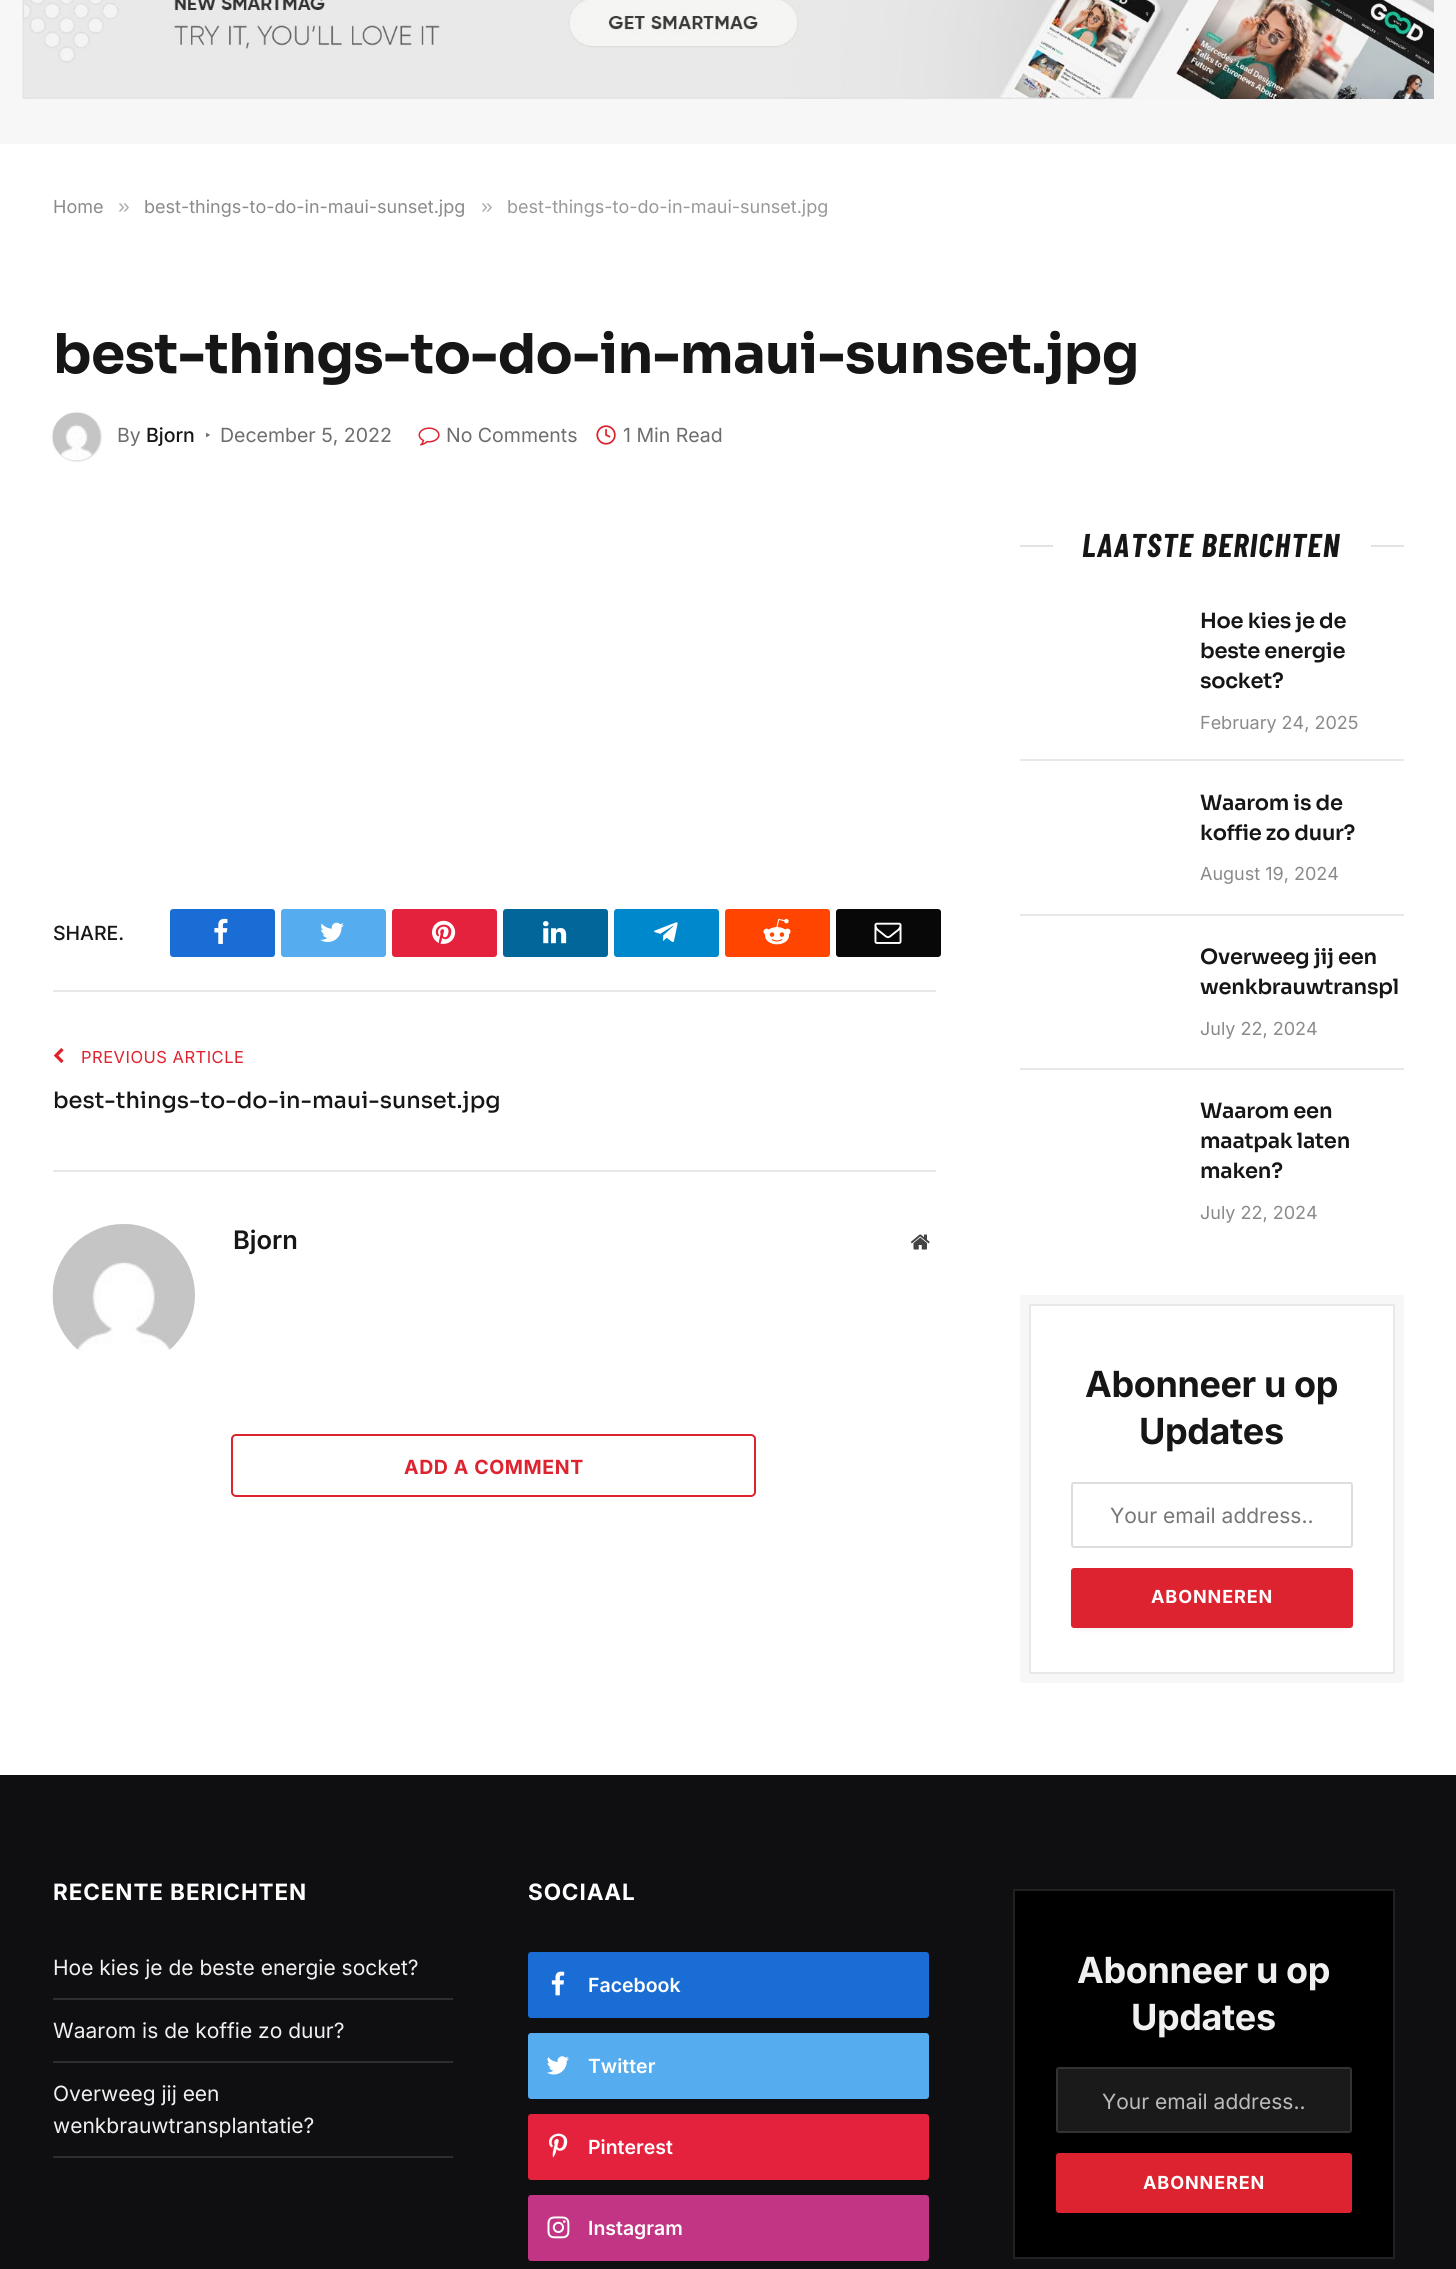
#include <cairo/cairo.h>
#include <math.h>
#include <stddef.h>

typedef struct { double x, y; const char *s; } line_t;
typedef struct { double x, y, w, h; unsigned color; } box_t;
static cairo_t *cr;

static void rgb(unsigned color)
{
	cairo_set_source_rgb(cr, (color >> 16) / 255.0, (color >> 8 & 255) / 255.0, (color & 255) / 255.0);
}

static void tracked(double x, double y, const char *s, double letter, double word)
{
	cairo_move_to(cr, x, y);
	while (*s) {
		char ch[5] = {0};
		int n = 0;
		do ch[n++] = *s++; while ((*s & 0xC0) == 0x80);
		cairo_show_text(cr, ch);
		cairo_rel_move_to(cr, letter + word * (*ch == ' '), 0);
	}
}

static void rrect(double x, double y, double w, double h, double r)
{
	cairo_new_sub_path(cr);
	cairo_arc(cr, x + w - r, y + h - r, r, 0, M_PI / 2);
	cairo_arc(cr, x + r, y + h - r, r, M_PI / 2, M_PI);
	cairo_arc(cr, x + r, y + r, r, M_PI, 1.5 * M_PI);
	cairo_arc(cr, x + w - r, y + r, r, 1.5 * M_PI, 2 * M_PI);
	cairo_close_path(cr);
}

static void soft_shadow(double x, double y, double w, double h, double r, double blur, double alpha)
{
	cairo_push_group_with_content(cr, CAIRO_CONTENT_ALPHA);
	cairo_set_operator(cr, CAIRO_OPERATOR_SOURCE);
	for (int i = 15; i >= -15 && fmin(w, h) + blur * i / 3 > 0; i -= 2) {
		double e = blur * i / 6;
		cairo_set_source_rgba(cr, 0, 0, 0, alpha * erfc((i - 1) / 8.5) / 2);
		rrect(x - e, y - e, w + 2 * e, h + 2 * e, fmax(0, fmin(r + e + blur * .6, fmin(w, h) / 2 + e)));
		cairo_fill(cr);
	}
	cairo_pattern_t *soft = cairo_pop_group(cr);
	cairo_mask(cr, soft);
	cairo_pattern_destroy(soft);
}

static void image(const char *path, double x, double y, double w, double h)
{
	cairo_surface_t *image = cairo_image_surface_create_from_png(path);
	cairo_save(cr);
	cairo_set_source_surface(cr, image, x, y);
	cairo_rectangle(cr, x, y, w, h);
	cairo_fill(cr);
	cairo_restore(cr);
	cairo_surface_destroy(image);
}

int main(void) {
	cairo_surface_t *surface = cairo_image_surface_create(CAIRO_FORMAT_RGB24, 1456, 2269);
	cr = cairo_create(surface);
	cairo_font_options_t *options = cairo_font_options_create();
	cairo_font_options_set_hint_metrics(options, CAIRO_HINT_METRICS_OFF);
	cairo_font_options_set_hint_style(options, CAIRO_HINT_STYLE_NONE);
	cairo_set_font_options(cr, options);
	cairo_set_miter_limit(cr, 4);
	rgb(0xffffff);
	cairo_paint(cr);
	rgb(0xf7f7f7);
	cairo_rectangle(cr, 0, 0, 1456, 144);
	cairo_fill(cr);
	image("img/1.png", 22, 0, 1412, 99);
	rgb(0x000000);
	soft_shadow(53, 413, 48, 48, 24, 1, 0.2);
	image("img/2.png", 52, 412, 49, 49);
	image("img/3.png", 418, 427, 22, 19);
	image("img/4.png", 596, 425, 20, 20);
	rgb(0x1a6dd4);
	rrect(170, 909, 105, 48, 3);
	cairo_fill(cr);
	image("img/5.png", 214, 918, 14, 26);
	rgb(0x55acef);
	rrect(281, 909, 105, 48, 3);
	cairo_fill(cr);
	image("img/6.png", 320, 922, 24, 20);
	rgb(0xe4223e);
	rrect(392, 909, 105, 48, 3);
	cairo_fill(cr);
	image("img/7.png", 432, 920, 24, 24);
	rgb(0x02669a);
	rrect(503, 909, 105, 48, 3);
	cairo_fill(cr);
	image("img/8.png", 543, 921, 24, 23);
	rgb(0x0088cc);
	rrect(614, 909, 105, 48, 3);
	cairo_fill(cr);
	image("img/9.png", 654, 922, 24, 20);
	rgb(0xff4500);
	rrect(725, 909, 105, 48, 3);
	cairo_fill(cr);
	image("img/10.png", 763, 918, 28, 27);
	rgb(0x080808);
	rrect(836, 909, 105, 48, 3);
	cairo_fill(cr);
	image("img/11.png", 874, 922, 28, 22);
	rgb(0xe8e8e8);
	cairo_rectangle(cr, 53, 990, 883, 2);
	cairo_fill(cr);
	image("img/12.png", 54, 1048, 10, 15);
	cairo_rectangle(cr, 53, 1170, 883, 2);
	cairo_fill(cr);
	image("img/13.png", 52, 1224, 143, 129);
	image("img/14.png", 910, 1234, 20, 16);
	rrect(232, 1435, 523, 61, 4);
	rgb(0xdd232f);
	cairo_stroke(cr);
	{
		static const box_t items[] = {
			{1020, 545, 33, 2, 0xe2e2e2},
			{1371, 545, 33, 2, 0xe2e2e2},
			{1020, 759, 384, 2, 0xe8e8e8},
			{1020, 914, 384, 2, 0xe8e8e8},
			{1020, 1068, 384, 2, 0xe8e8e8},
		};
		for (size_t i = 0; i < sizeof items / sizeof *items; i++) {
			rgb(items[i].color);
			cairo_rectangle(cr, items[i].x, items[i].y, items[i].w, items[i].h);
			cairo_fill(cr);
		}
	}
	cairo_rectangle(cr, 1024.5, 1299.5, 375, 379);
	rgb(0xf7f7f7);
	cairo_set_line_width(cr, 9);
	cairo_stroke(cr);
	cairo_rectangle(cr, 1030, 1305, 364, 368);
	rgb(0xe8e8e8);
	cairo_set_line_width(cr, 2);
	cairo_stroke(cr);
	rrect(1072, 1483, 280, 64, 2);
	rgb(0xdddddd);
	cairo_stroke(cr);
	rgb(0x000000);
	soft_shadow(1077, 1577, 270, 48, 0, 5, 0.16);
	rgb(0xdd232f);
	rrect(1071, 1568, 282, 60, 3);
	cairo_fill(cr);
	{
		static const box_t items[] = {
			{0, 1775, 1456, 494, 0x0f0f11},
			{53, 1998, 400, 2, 0x2e2e30},
			{53, 2061, 400, 2, 0x2e2e30},
			{53, 2156, 400, 2, 0x2e2e30},
		};
		for (size_t i = 0; i < sizeof items / sizeof *items; i++) {
			rgb(items[i].color);
			cairo_rectangle(cr, items[i].x, items[i].y, items[i].w, items[i].h);
			cairo_fill(cr);
		}
	}
	rgb(0x1a6dd4);
	rrect(528, 1952, 401, 66, 3);
	cairo_fill(cr);
	image("img/15.png", 551, 1971, 14, 25);
	rgb(0x55acef);
	rrect(528, 2033, 401, 66, 3);
	cairo_fill(cr);
	image("img/16.png", 546, 2056, 23, 19);
	rgb(0xe4223e);
	rrect(528, 2114, 401, 66, 3);
	cairo_fill(cr);
	image("img/17.png", 549, 2133, 19, 25);
	rgb(0xc13584);
	rrect(528, 2195, 401, 66, 3);
	cairo_fill(cr);
	image("img/18.png", 547, 2216, 23, 23);
	rgb(0x000000);
	cairo_rectangle(cr, 1014, 1890, 380, 368);
	cairo_fill_preserve(cr);
	rgb(0x212121);
	cairo_stroke(cr);
	rgb(0x1a1a1a);
	rrect(1057, 2068, 294, 64, 2);
	cairo_fill_preserve(cr);
	rgb(0x333333);
	cairo_stroke(cr);
	rgb(0xdd232f);
	rrect(1056, 2153, 296, 60, 3);
	cairo_fill(cr);
	cairo_select_font_face(cr, "Inter", CAIRO_FONT_SLANT_NORMAL, CAIRO_FONT_WEIGHT_NORMAL);
	cairo_set_font_size(cr, 18);
	rgb(0x8a8a8a);
	cairo_move_to(cr, 53, 213);
	cairo_show_text(cr, "Home");
	cairo_select_font_face(cr, "Liberation Sans", CAIRO_FONT_SLANT_NORMAL, CAIRO_FONT_WEIGHT_NORMAL);
	cairo_set_font_size(cr, 21);
	rgb(0xadadad);
	cairo_move_to(cr, 118, 213);
	cairo_show_text(cr, "»");
	cairo_select_font_face(cr, "Inter", CAIRO_FONT_SLANT_NORMAL, CAIRO_FONT_WEIGHT_NORMAL);
	cairo_set_font_size(cr, 18);
	rgb(0x8a8a8a);
	cairo_move_to(cr, 144, 213);
	cairo_show_text(cr, "best-things-to-do-in-maui-sunset.jpg");
	cairo_select_font_face(cr, "Liberation Sans", CAIRO_FONT_SLANT_NORMAL, CAIRO_FONT_WEIGHT_NORMAL);
	cairo_set_font_size(cr, 21);
	rgb(0xadadad);
	cairo_move_to(cr, 481, 213);
	cairo_show_text(cr, "»");
	cairo_select_font_face(cr, "Inter", CAIRO_FONT_SLANT_NORMAL, CAIRO_FONT_WEIGHT_NORMAL);
	cairo_set_font_size(cr, 18);
	rgb(0x999999);
	cairo_move_to(cr, 507, 213);
	cairo_show_text(cr, "best-things-to-do-in-maui-sunset.jpg");
	cairo_select_font_face(cr, "Sora", CAIRO_FONT_SLANT_NORMAL, CAIRO_FONT_WEIGHT_BOLD);
	cairo_set_font_size(cr, 54.75);
	rgb(0x161616);
	tracked(53, 373, "best-things-to-do-in-maui-sunset.jpg", -0.55, 0);
	cairo_select_font_face(cr, "Inter", CAIRO_FONT_SLANT_NORMAL, CAIRO_FONT_WEIGHT_NORMAL);
	cairo_set_font_size(cr, 19.5);
	rgb(0x6d6d6d);
	cairo_move_to(cr, 117, 442);
	cairo_show_text(cr, "By");
	cairo_select_font_face(cr, "Inter Medium", CAIRO_FONT_SLANT_NORMAL, CAIRO_FONT_WEIGHT_NORMAL);
	rgb(0x161616);
	cairo_move_to(cr, 146, 442);
	cairo_show_text(cr, "Bjorn");
	cairo_select_font_face(cr, "Noto Sans", CAIRO_FONT_SLANT_NORMAL, CAIRO_FONT_WEIGHT_NORMAL);
	cairo_set_font_size(cr, 16);
	rgb(0x6d6d6d);
	cairo_move_to(cr, 205, 441);
	cairo_show_text(cr, "‣");
	cairo_select_font_face(cr, "Inter", CAIRO_FONT_SLANT_NORMAL, CAIRO_FONT_WEIGHT_NORMAL);
	cairo_set_font_size(cr, 19.5);
	{
		static const line_t items[] = {
			{220, 442, "December 5, 2022"},
			{446, 442, "No Comments"},
			{623, 442, "1 Min Read"},
		};
		for (size_t i = 0; i < sizeof items / sizeof *items; i++) {
			cairo_move_to(cr, items[i].x, items[i].y);
			cairo_show_text(cr, items[i].s);
		}
	}
	cairo_select_font_face(cr, "Inter Medium", CAIRO_FONT_SLANT_NORMAL, CAIRO_FONT_WEIGHT_NORMAL);
	rgb(0x161616);
	cairo_move_to(cr, 53, 940);
	cairo_show_text(cr, "SHARE.");
	cairo_select_font_face(cr, "Inter", CAIRO_FONT_SLANT_NORMAL, CAIRO_FONT_WEIGHT_NORMAL);
	cairo_set_font_size(cr, 16.5);
	rgb(0xdd232f);
	tracked(81, 1063, "PREVIOUS ARTICLE", 0.5, 0);
	cairo_select_font_face(cr, "Sora Medium", CAIRO_FONT_SLANT_NORMAL, CAIRO_FONT_WEIGHT_NORMAL);
	cairo_set_font_size(cr, 22.5);
	rgb(0x161616);
	cairo_move_to(cr, 53, 1108);
	cairo_show_text(cr, "best-things-to-do-in-maui-sunset.jpg");
	cairo_select_font_face(cr, "Inter SemiBold", CAIRO_FONT_SLANT_NORMAL, CAIRO_FONT_WEIGHT_NORMAL);
	cairo_set_font_size(cr, 25.5);
	cairo_move_to(cr, 233, 1249);
	cairo_show_text(cr, "Bjorn");
	cairo_select_font_face(cr, "Inter", CAIRO_FONT_SLANT_NORMAL, CAIRO_FONT_WEIGHT_BOLD);
	cairo_set_font_size(cr, 19.5);
	rgb(0xdd232f);
	tracked(404, 1474, "ADD A COMMENT", 0.6, 0);
	cairo_select_font_face(cr, "Barlow Condensed", CAIRO_FONT_SLANT_ITALIC, CAIRO_FONT_WEIGHT_BOLD);
	cairo_set_font_size(cr, 33);
	rgb(0x161616);
	tracked(1082, 557, "LAATSTE BERICHTEN", 1.3, 0);
	cairo_select_font_face(cr, "Sora SemiBold", CAIRO_FONT_SLANT_NORMAL, CAIRO_FONT_WEIGHT_NORMAL);
	cairo_set_font_size(cr, 21);
	{
		static const line_t items[] = {
			{1200, 628, "Hoe kies je de"},
			{1200, 658, "beste energie"},
			{1200, 688, "socket?"},
		};
		for (size_t i = 0; i < sizeof items / sizeof *items; i++) {
			tracked(items[i].x, items[i].y, items[i].s, -0.25, 0);
		}
	}
	cairo_select_font_face(cr, "Inter", CAIRO_FONT_SLANT_NORMAL, CAIRO_FONT_WEIGHT_NORMAL);
	cairo_set_font_size(cr, 18);
	rgb(0x8a8a8a);
	cairo_move_to(cr, 1200, 729);
	cairo_show_text(cr, "February 24, 2025");
	cairo_select_font_face(cr, "Sora SemiBold", CAIRO_FONT_SLANT_NORMAL, CAIRO_FONT_WEIGHT_NORMAL);
	cairo_set_font_size(cr, 21);
	rgb(0x161616);
	tracked(1200, 810, "Waarom is de", -0.25, 0);
	tracked(1200, 840, "koffie zo duur?", -0.25, 0);
	cairo_select_font_face(cr, "Inter", CAIRO_FONT_SLANT_NORMAL, CAIRO_FONT_WEIGHT_NORMAL);
	cairo_set_font_size(cr, 18);
	rgb(0x8a8a8a);
	cairo_move_to(cr, 1200, 880);
	cairo_show_text(cr, "August 19, 2024");
	cairo_select_font_face(cr, "Sora SemiBold", CAIRO_FONT_SLANT_NORMAL, CAIRO_FONT_WEIGHT_NORMAL);
	cairo_set_font_size(cr, 21);
	rgb(0x161616);
	tracked(1200, 964, "Overweeg jij een", -0.25, 0);
	tracked(1200, 994, "wenkbrauwtranspl", -0.25, 0);
	cairo_select_font_face(cr, "Inter", CAIRO_FONT_SLANT_NORMAL, CAIRO_FONT_WEIGHT_NORMAL);
	cairo_set_font_size(cr, 18);
	rgb(0x8a8a8a);
	cairo_move_to(cr, 1200, 1035);
	cairo_show_text(cr, "July 22, 2024");
	cairo_select_font_face(cr, "Sora SemiBold", CAIRO_FONT_SLANT_NORMAL, CAIRO_FONT_WEIGHT_NORMAL);
	cairo_set_font_size(cr, 21);
	rgb(0x161616);
	{
		static const line_t items[] = {
			{1200, 1118, "Waarom een"},
			{1200, 1148, "maatpak laten"},
			{1200, 1178, "maken?"},
		};
		for (size_t i = 0; i < sizeof items / sizeof *items; i++) {
			tracked(items[i].x, items[i].y, items[i].s, -0.25, 0);
		}
	}
	cairo_select_font_face(cr, "Inter", CAIRO_FONT_SLANT_NORMAL, CAIRO_FONT_WEIGHT_NORMAL);
	cairo_set_font_size(cr, 18);
	rgb(0x8a8a8a);
	cairo_move_to(cr, 1200, 1219);
	cairo_show_text(cr, "July 22, 2024");
	cairo_select_font_face(cr, "Inter", CAIRO_FONT_SLANT_NORMAL, CAIRO_FONT_WEIGHT_BOLD);
	cairo_set_font_size(cr, 36);
	rgb(0x161616);
	tracked(1085, 1397, "Abonneer u op", -0.4, 0);
	tracked(1139, 1444, "Updates", -0.4, 0);
	cairo_select_font_face(cr, "Inter", CAIRO_FONT_SLANT_NORMAL, CAIRO_FONT_WEIGHT_NORMAL);
	cairo_set_font_size(cr, 21);
	rgb(0x777777);
	cairo_move_to(cr, 1110, 1523);
	cairo_show_text(cr, "Your email address..");
	cairo_select_font_face(cr, "Inter", CAIRO_FONT_SLANT_NORMAL, CAIRO_FONT_WEIGHT_BOLD);
	cairo_set_font_size(cr, 18);
	rgb(0xffffff);
	tracked(1151, 1603, "ABONNEREN", 0.9, 0);
	cairo_set_font_size(cr, 22.5);
	tracked(53, 1900, "RECENTE BERICHTEN", 0.9, 0);
	cairo_select_font_face(cr, "Inter", CAIRO_FONT_SLANT_NORMAL, CAIRO_FONT_WEIGHT_NORMAL);
	cairo_set_font_size(cr, 21);
	rgb(0xf0f0f0);
	{
		static const line_t items[] = {
			{53, 1975, "Hoe kies je de beste energie socket?"},
			{53, 2038, "Waarom is de koffie zo duur?"},
			{53, 2101, "Overweeg jij een"},
			{53, 2133, "wenkbrauwtransplantatie?"},
		};
		for (size_t i = 0; i < sizeof items / sizeof *items; i++) {
			cairo_move_to(cr, items[i].x, items[i].y);
			cairo_show_text(cr, items[i].s);
		}
	}
	cairo_select_font_face(cr, "Inter", CAIRO_FONT_SLANT_NORMAL, CAIRO_FONT_WEIGHT_BOLD);
	cairo_set_font_size(cr, 22.5);
	rgb(0xffffff);
	tracked(528, 1900, "SOCIAAL", 0.9, 0);
	cairo_select_font_face(cr, "Inter SemiBold", CAIRO_FONT_SLANT_NORMAL, CAIRO_FONT_WEIGHT_NORMAL);
	cairo_set_font_size(cr, 19.5);
	{
		static const line_t items[] = {
			{588, 1992, "Facebook"},
			{588, 2073, "Twitter"},
			{588, 2154, "Pinterest"},
			{588, 2235, "Instagram"},
		};
		for (size_t i = 0; i < sizeof items / sizeof *items; i++) {
			cairo_move_to(cr, items[i].x, items[i].y);
			cairo_show_text(cr, items[i].s);
		}
	}
	cairo_select_font_face(cr, "Inter", CAIRO_FONT_SLANT_NORMAL, CAIRO_FONT_WEIGHT_BOLD);
	cairo_set_font_size(cr, 36);
	rgb(0xf0f0f0);
	tracked(1077, 1983, "Abonneer u op", -0.4, 0);
	tracked(1131, 2030, "Updates", -0.4, 0);
	cairo_select_font_face(cr, "Inter", CAIRO_FONT_SLANT_NORMAL, CAIRO_FONT_WEIGHT_NORMAL);
	cairo_set_font_size(cr, 21);
	rgb(0xbbbbbb);
	cairo_move_to(cr, 1102, 2109);
	cairo_show_text(cr, "Your email address..");
	cairo_select_font_face(cr, "Inter", CAIRO_FONT_SLANT_NORMAL, CAIRO_FONT_WEIGHT_BOLD);
	cairo_set_font_size(cr, 18);
	rgb(0xffffff);
	tracked(1143, 2189, "ABONNEREN", 0.9, 0);
	cairo_surface_write_to_png(surface, "page.png");
	cairo_font_options_destroy(options);
	cairo_destroy(cr);
	cairo_surface_destroy(surface);
	return 0;
}
